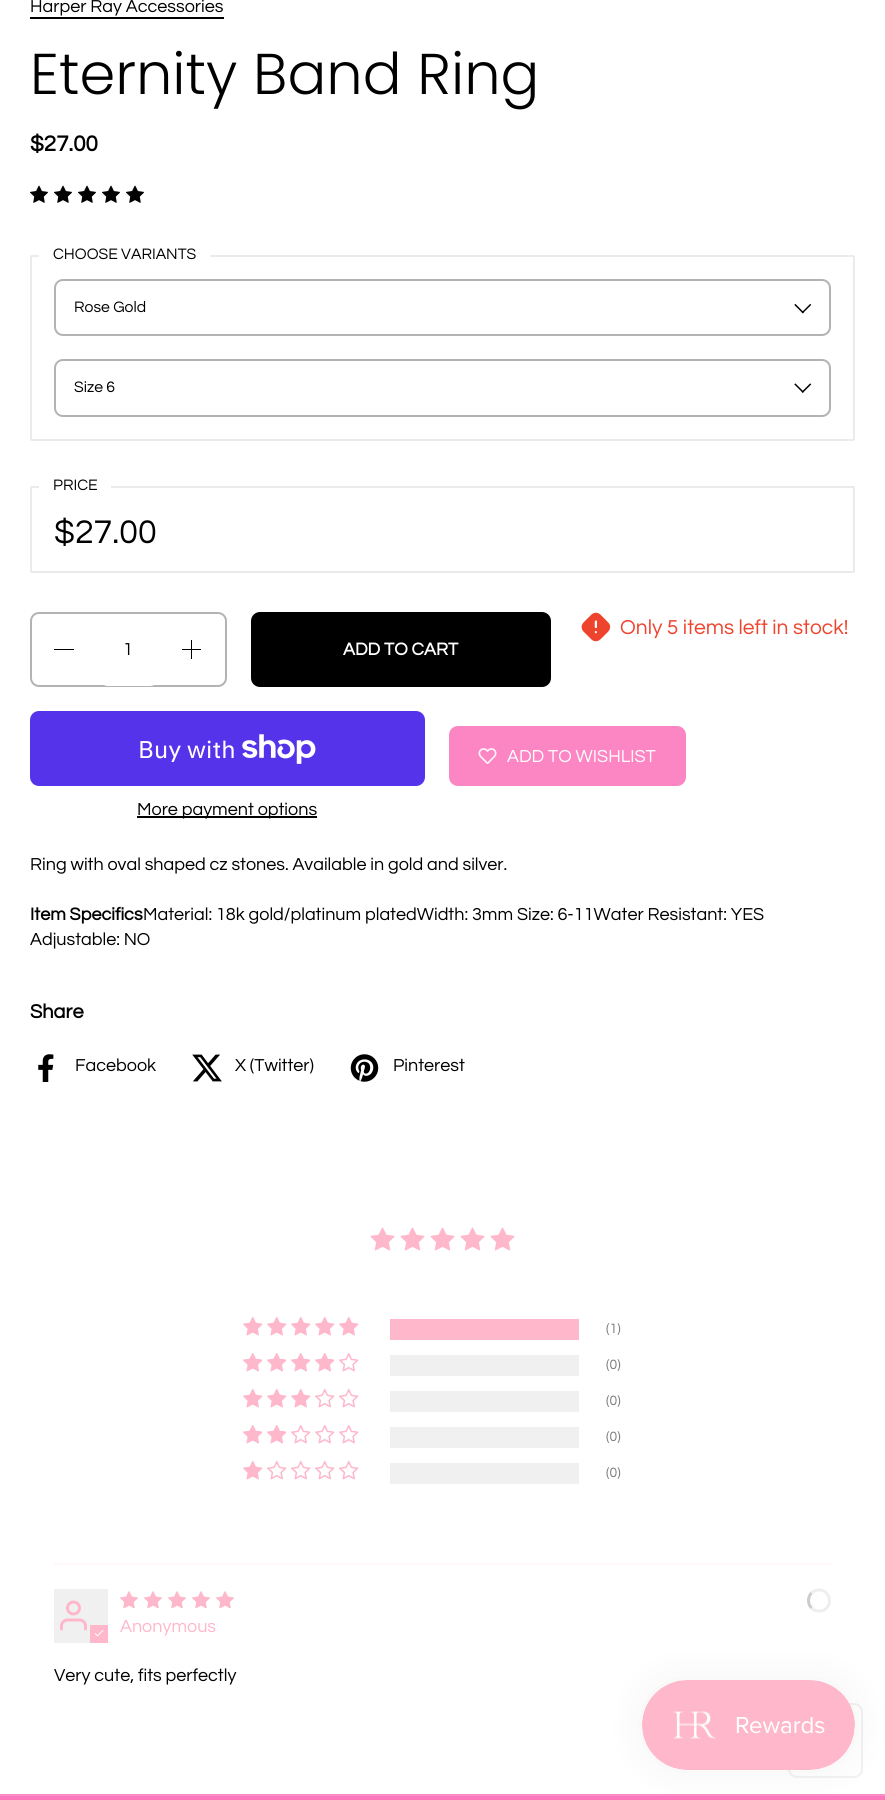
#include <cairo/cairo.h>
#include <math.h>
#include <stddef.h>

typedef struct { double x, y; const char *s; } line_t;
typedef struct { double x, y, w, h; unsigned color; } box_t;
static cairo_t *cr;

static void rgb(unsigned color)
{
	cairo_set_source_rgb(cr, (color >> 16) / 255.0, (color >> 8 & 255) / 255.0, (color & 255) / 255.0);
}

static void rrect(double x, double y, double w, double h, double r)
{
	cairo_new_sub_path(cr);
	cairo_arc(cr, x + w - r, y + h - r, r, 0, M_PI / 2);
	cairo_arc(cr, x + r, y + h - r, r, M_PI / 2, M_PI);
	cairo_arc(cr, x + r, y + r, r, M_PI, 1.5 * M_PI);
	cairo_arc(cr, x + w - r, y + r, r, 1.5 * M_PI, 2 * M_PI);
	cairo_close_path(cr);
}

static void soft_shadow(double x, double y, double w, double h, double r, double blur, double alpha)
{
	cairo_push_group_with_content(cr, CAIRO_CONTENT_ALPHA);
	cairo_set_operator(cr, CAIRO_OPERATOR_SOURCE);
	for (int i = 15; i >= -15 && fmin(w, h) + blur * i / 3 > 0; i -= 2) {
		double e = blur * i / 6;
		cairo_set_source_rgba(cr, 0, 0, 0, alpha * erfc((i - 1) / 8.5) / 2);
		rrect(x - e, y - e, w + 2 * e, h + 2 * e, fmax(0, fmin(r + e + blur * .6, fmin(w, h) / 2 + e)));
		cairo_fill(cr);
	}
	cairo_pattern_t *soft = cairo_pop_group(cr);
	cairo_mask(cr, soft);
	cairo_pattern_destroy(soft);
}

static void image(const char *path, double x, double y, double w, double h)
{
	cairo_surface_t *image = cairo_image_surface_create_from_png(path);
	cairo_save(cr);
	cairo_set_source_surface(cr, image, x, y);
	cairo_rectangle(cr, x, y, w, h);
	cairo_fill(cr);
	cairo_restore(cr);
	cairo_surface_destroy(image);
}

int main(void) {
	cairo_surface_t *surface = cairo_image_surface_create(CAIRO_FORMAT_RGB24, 885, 1800);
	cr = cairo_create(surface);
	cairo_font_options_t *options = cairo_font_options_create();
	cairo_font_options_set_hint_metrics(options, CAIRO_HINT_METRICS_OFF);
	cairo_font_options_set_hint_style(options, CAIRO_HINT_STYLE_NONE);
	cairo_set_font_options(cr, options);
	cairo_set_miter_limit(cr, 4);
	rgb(0xffffff);
	cairo_paint(cr);
	rgb(0x000000);
	cairo_rectangle(cr, 30, 17, 194, 2);
	cairo_fill(cr);
	image("img/1.png", 30, 185, 18, 18);
	image("img/1.png", 54, 185, 18, 18);
	image("img/1.png", 78, 185, 18, 18);
	image("img/1.png", 102, 185, 18, 18);
	image("img/1.png", 126, 185, 18, 18);
	rrect(31, 256, 823, 184, 0.5);
	rgb(0xebebeb);
	cairo_stroke(cr);
	rgb(0xffffff);
	cairo_rectangle(cr, 39, 255, 171, 2);
	cairo_fill(cr);
	image("img/2.png", 794, 303, 18, 11);
	rrect(55, 280, 775, 55, 8);
	rgb(0xb3b3b3);
	cairo_stroke(cr);
	image("img/3.png", 794, 383, 18, 10);
	rrect(55, 360, 775, 56, 8);
	cairo_stroke(cr);
	rrect(31, 487, 823, 85, 0.5);
	rgb(0xebebeb);
	cairo_stroke(cr);
	rgb(0xffffff);
	cairo_rectangle(cr, 39, 486, 72, 2);
	cairo_fill(cr);
	image("img/4.png", 581, 612, 30, 30);
	rrect(31, 613, 195, 73, 8);
	rgb(0xb3b3b3);
	cairo_stroke(cr);
	rgb(0x000000);
	cairo_rectangle(cr, 54, 649, 20, 1);
	cairo_fill(cr);
	rgb(0xffffff);
	rrect(99, 614, 60, 72, 9);
	cairo_fill(cr);
	rgb(0x000000);
	cairo_rectangle(cr, 191, 640, 1, 19);
	cairo_fill(cr);
	cairo_rectangle(cr, 182, 649, 19, 1);
	cairo_fill(cr);
	rrect(252, 613, 298, 73, 8);
	cairo_fill_preserve(cr);
	cairo_stroke(cr);
	rgb(0x5433eb);
	rrect(30, 711, 395, 75, 9);
	cairo_fill(cr);
	image("img/5.png", 242, 734, 74, 30);
	rgb(0x000000);
	cairo_rectangle(cr, 137, 816, 180, 2);
	cairo_fill(cr);
	rgb(0xfc86c3);
	rrect(449, 726, 237, 60, 9);
	cairo_fill(cr);
	image("img/6.png", 478, 748, 19, 16);
	image("img/7.png", 38, 1054, 16, 28);
	image("img/8.png", 192, 1054, 30, 28);
	image("img/9.png", 350, 1054, 29, 28);
	image("img/10.png", 370, 1227, 25, 24);
	image("img/10.png", 400, 1227, 25, 24);
	image("img/10.png", 430, 1227, 25, 24);
	image("img/10.png", 460, 1227, 25, 24);
	image("img/10.png", 490, 1227, 25, 24);
	image("img/11.png", 243, 1317, 20, 19);
	image("img/11.png", 267, 1317, 20, 19);
	image("img/11.png", 291, 1317, 20, 19);
	image("img/11.png", 315, 1317, 20, 19);
	image("img/11.png", 339, 1317, 20, 19);
	rgb(0xfeb7cb);
	cairo_rectangle(cr, 390, 1319, 189, 21);
	cairo_fill(cr);
	image("img/11.png", 243, 1353, 20, 19);
	image("img/11.png", 267, 1353, 20, 19);
	image("img/11.png", 291, 1353, 20, 19);
	image("img/11.png", 315, 1353, 20, 19);
	image("img/12.png", 339, 1353, 20, 19);
	rgb(0xf0f0f0);
	cairo_rectangle(cr, 390, 1355, 189, 21);
	cairo_fill(cr);
	image("img/11.png", 243, 1389, 20, 19);
	image("img/11.png", 267, 1389, 20, 19);
	image("img/11.png", 291, 1389, 20, 19);
	image("img/12.png", 315, 1389, 20, 19);
	image("img/12.png", 339, 1389, 20, 19);
	cairo_rectangle(cr, 390, 1391, 189, 21);
	cairo_fill(cr);
	image("img/11.png", 243, 1425, 20, 19);
	image("img/11.png", 267, 1425, 20, 19);
	image("img/12.png", 291, 1425, 20, 19);
	image("img/12.png", 315, 1425, 20, 19);
	image("img/12.png", 339, 1425, 20, 19);
	cairo_rectangle(cr, 390, 1427, 189, 21);
	cairo_fill(cr);
	image("img/11.png", 243, 1461, 20, 19);
	image("img/12.png", 267, 1461, 20, 19);
	image("img/12.png", 291, 1461, 20, 19);
	image("img/12.png", 315, 1461, 20, 19);
	image("img/12.png", 339, 1461, 20, 19);
	{
		static const box_t items[] = {
			{390, 1463, 189, 21, 0xf0f0f0},
			{54, 1563, 777, 2, 0xfff8fa},
			{54, 1589, 54, 54, 0xf0f0f0},
		};
		for (size_t i = 0; i < sizeof items / sizeof *items; i++) {
			rgb(items[i].color);
			cairo_rectangle(cr, items[i].x, items[i].y, items[i].w, items[i].h);
			cairo_fill(cr);
		}
	}
	image("img/13.png", 60, 1600, 27, 31);
	rgb(0xfeb7cb);
	cairo_rectangle(cr, 90, 1625, 18, 18);
	cairo_fill(cr);
	image("img/14.png", 94, 1630, 10, 7);
	image("img/15.png", 120, 1591, 18, 18);
	image("img/15.png", 144, 1591, 18, 18);
	image("img/15.png", 168, 1591, 18, 18);
	image("img/15.png", 192, 1591, 18, 18);
	image("img/15.png", 216, 1591, 18, 18);
	cairo_new_path(cr);
	cairo_move_to(cr, 811.5, 1593);
	cairo_curve_to(cr, 813.5, 1591, 816, 1590, 819, 1590);
	cairo_curve_to(cr, 831.5, 1590, 833.5, 1608.5, 821, 1611);
	cairo_curve_to(cr, 817.5, 1611.5, 814, 1610.5, 811.5, 1608);
	rgb(0xeeeeee);
	cairo_set_line_width(cr, 3);
	cairo_stroke(cr);
	cairo_new_path(cr);
	cairo_move_to(cr, 811.5, 1608);
	cairo_curve_to(cr, 807.5, 1604, 807.5, 1597, 811.5, 1593);
	rgb(0xcccccc);
	cairo_stroke(cr);
	rrect(789, 1704, 73, 73, 8);
	rgb(0xf2f2f2);
	cairo_set_line_width(cr, 2);
	cairo_stroke(cr);
	rgb(0xfc78bc);
	cairo_rectangle(cr, 0, 1796, 885, 4);
	cairo_fill(cr);
	rgb(0xfc8cc6);
	cairo_rectangle(cr, 0, 1794, 885, 2);
	cairo_fill(cr);
	rgb(0x000000);
	soft_shadow(642, 1680, 213, 90, 45, 19, 0.05);
	image("img/16.png", 642, 1680, 213, 90);
	cairo_select_font_face(cr, "Questrial", CAIRO_FONT_SLANT_NORMAL, CAIRO_FONT_WEIGHT_NORMAL);
	cairo_set_font_size(cr, 18);
	rgb(0x000000);
	cairo_move_to(cr, 30, 12);
	cairo_show_text(cr, "Harper Ray Accessories");
	cairo_select_font_face(cr, "Poppins Light", CAIRO_FONT_SLANT_NORMAL, CAIRO_FONT_WEIGHT_NORMAL);
	cairo_set_font_size(cr, 57.5);
	cairo_move_to(cr, 30, 94);
	cairo_show_text(cr, "Eternity Band Ring");
	cairo_select_font_face(cr, "Questrial", CAIRO_FONT_SLANT_NORMAL, CAIRO_FONT_WEIGHT_BOLD);
	cairo_set_font_size(cr, 22.5);
	cairo_move_to(cr, 30, 151);
	cairo_show_text(cr, "$27.00");
	cairo_select_font_face(cr, "Questrial", CAIRO_FONT_SLANT_NORMAL, CAIRO_FONT_WEIGHT_NORMAL);
	cairo_set_font_size(cr, 15.75);
	{
		static const line_t items[] = {
			{53, 259, "CHOOSE VARIANTS"},
			{74, 312, "Rose Gold"},
			{74, 392, "Size 6"},
			{53, 490, "PRICE"},
		};
		for (size_t i = 0; i < sizeof items / sizeof *items; i++) {
			cairo_move_to(cr, items[i].x, items[i].y);
			cairo_show_text(cr, items[i].s);
		}
	}
	cairo_set_font_size(cr, 34);
	cairo_move_to(cr, 54, 543);
	cairo_show_text(cr, "$27.00");
	cairo_set_font_size(cr, 21);
	rgb(0xee442e);
	cairo_move_to(cr, 620, 634);
	cairo_show_text(cr, "Only 5 items left in stock!");
	cairo_set_font_size(cr, 18);
	rgb(0x000000);
	cairo_move_to(cr, 123, 655);
	cairo_show_text(cr, "1");
	cairo_select_font_face(cr, "Questrial", CAIRO_FONT_SLANT_NORMAL, CAIRO_FONT_WEIGHT_BOLD);
	rgb(0xffffff);
	cairo_move_to(cr, 343, 655);
	cairo_show_text(cr, "ADD TO CART");
	cairo_select_font_face(cr, "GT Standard", CAIRO_FONT_SLANT_NORMAL, CAIRO_FONT_WEIGHT_NORMAL);
	cairo_set_font_size(cr, 24);
	cairo_move_to(cr, 138, 758);
	cairo_show_text(cr, "Buy with");
	cairo_select_font_face(cr, "Questrial", CAIRO_FONT_SLANT_NORMAL, CAIRO_FONT_WEIGHT_NORMAL);
	cairo_set_font_size(cr, 18);
	rgb(0x000000);
	cairo_move_to(cr, 137, 815);
	cairo_show_text(cr, "More payment options");
	rgb(0xffffff);
	cairo_move_to(cr, 507, 762);
	cairo_show_text(cr, "ADD TO WISHLIST");
	rgb(0x000000);
	cairo_move_to(cr, 30, 870);
	cairo_show_text(cr, "Ring with oval shaped cz stones. Available in gold and silver.");
	cairo_select_font_face(cr, "Questrial", CAIRO_FONT_SLANT_NORMAL, CAIRO_FONT_WEIGHT_BOLD);
	cairo_move_to(cr, 30, 920);
	cairo_show_text(cr, "Item Specifics");
	cairo_select_font_face(cr, "Questrial", CAIRO_FONT_SLANT_NORMAL, CAIRO_FONT_WEIGHT_NORMAL);
	cairo_move_to(cr, 143, 920);
	cairo_show_text(cr, "Material: 18k gold/platinum platedWidth: 3mm Size: 6-11Water Resistant: YES");
	cairo_move_to(cr, 30, 945);
	cairo_show_text(cr, "Adjustable: NO");
	cairo_select_font_face(cr, "Questrial", CAIRO_FONT_SLANT_NORMAL, CAIRO_FONT_WEIGHT_BOLD);
	cairo_set_font_size(cr, 20);
	cairo_move_to(cr, 30, 1018);
	cairo_show_text(cr, "Share");
	cairo_select_font_face(cr, "Questrial", CAIRO_FONT_SLANT_NORMAL, CAIRO_FONT_WEIGHT_NORMAL);
	cairo_set_font_size(cr, 18);
	{
		static const line_t items[] = {
			{75, 1071, "Facebook"},
			{235, 1071, "X (Twitter)"},
			{393, 1071, "Pinterest"},
		};
		for (size_t i = 0; i < sizeof items / sizeof *items; i++) {
			cairo_move_to(cr, items[i].x, items[i].y);
			cairo_show_text(cr, items[i].s);
		}
	}
	cairo_set_font_size(cr, 14);
	rgb(0x7b7b7b);
	{
		static const line_t items[] = {
			{606, 1333, "(1)"},
			{606, 1369, "(0)"},
			{606, 1405, "(0)"},
			{606, 1441, "(0)"},
			{606, 1477, "(0)"},
		};
		for (size_t i = 0; i < sizeof items / sizeof *items; i++) {
			cairo_move_to(cr, items[i].x, items[i].y);
			cairo_show_text(cr, items[i].s);
		}
	}
	cairo_set_font_size(cr, 18);
	rgb(0xfeb7cb);
	cairo_move_to(cr, 120, 1632);
	cairo_show_text(cr, "Anonymous");
	rgb(0x000000);
	cairo_move_to(cr, 54, 1681);
	cairo_show_text(cr, "Very cute, fits perfectly");
	cairo_surface_write_to_png(surface, "page.png");
	cairo_font_options_destroy(options);
	cairo_destroy(cr);
	cairo_surface_destroy(surface);
	return 0;
}
